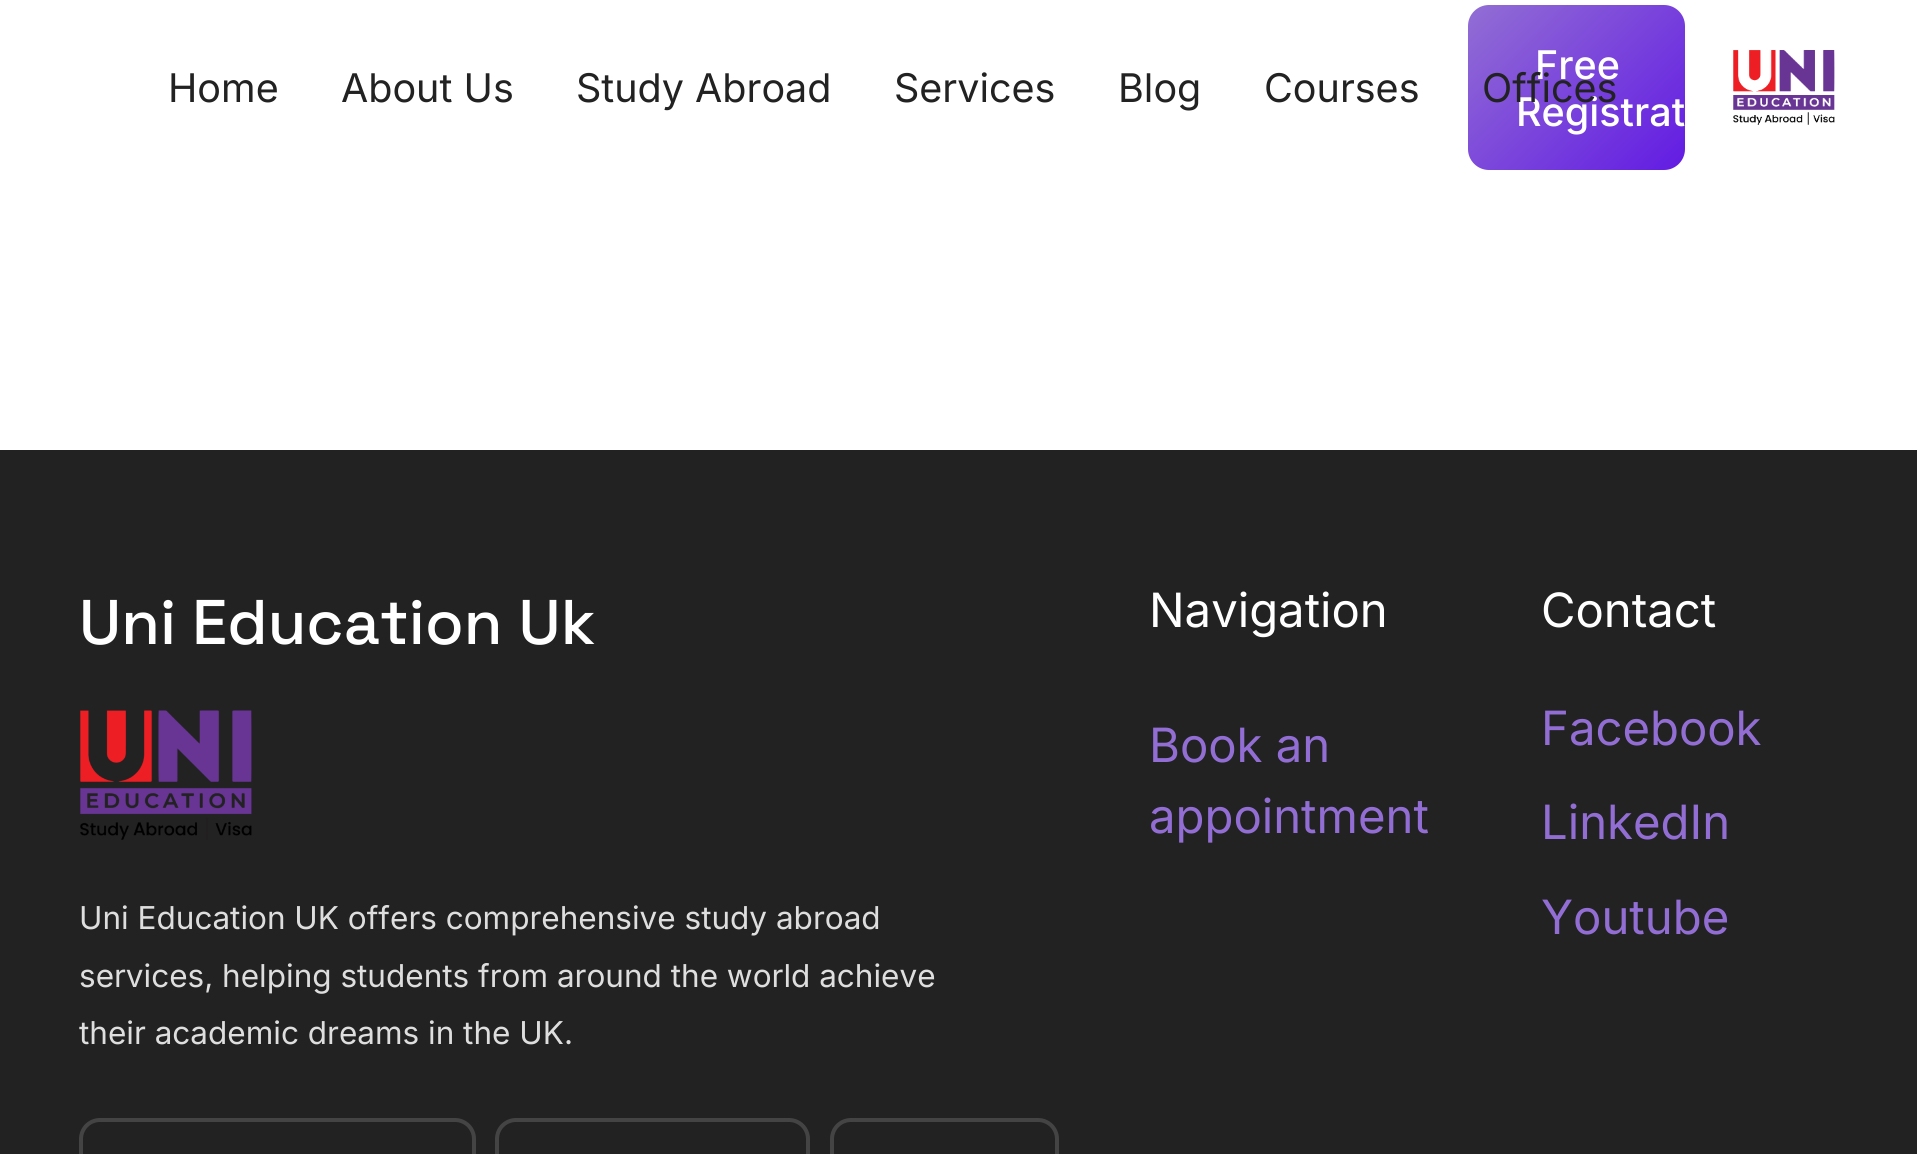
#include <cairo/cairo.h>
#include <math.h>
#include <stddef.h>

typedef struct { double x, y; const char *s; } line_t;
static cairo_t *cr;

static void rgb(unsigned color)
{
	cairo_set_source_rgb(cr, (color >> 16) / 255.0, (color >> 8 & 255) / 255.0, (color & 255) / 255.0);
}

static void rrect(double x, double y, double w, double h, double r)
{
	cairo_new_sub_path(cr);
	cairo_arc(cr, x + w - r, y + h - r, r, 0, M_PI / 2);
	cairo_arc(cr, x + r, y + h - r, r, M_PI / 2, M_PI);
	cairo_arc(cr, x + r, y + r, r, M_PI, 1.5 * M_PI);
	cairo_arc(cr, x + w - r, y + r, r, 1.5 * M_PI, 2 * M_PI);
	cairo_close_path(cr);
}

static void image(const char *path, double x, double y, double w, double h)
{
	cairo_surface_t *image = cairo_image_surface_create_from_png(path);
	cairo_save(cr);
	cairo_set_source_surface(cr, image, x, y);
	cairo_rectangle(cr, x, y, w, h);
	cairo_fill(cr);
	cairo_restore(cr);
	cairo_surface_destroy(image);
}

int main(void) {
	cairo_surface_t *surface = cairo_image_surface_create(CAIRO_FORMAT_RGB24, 1917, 1154);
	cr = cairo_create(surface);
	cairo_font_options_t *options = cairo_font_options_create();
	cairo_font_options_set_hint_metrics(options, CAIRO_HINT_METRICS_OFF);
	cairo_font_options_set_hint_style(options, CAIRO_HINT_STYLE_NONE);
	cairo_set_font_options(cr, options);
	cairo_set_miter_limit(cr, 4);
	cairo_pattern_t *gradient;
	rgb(0xffffff);
	cairo_paint(cr);
	gradient = cairo_pattern_create_linear(1481, -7.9, 1672, 183);
	cairo_pattern_add_color_stop_rgba(gradient, 0, 0.573, 0.431, 0.831, 1);
	cairo_pattern_add_color_stop_rgba(gradient, 1, 0.384, 0.106, 0.89, 1);
	cairo_set_source(cr, gradient);
	cairo_pattern_destroy(gradient);
	rrect(1468, 5, 217, 165, 21);
	cairo_fill(cr);
	image("img/1.png", 1733, 50, 102, 75);
	rgb(0x222222);
	cairo_rectangle(cr, 0, 450, 1917, 704);
	cairo_fill(cr);
	image("img/2.png", 80, 710, 172, 130);
	rrect(81, 1120, 393, 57, 19);
	rgb(0x444444);
	cairo_set_line_width(cr, 4);
	cairo_stroke(cr);
	rrect(497, 1120, 311, 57, 19);
	cairo_stroke(cr);
	rrect(832, 1120, 225, 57, 19);
	cairo_stroke(cr);
	cairo_select_font_face(cr, "Inter Medium", CAIRO_FONT_SLANT_NORMAL, CAIRO_FONT_WEIGHT_NORMAL);
	cairo_set_font_size(cr, 39.5);
	rgb(0xffffff);
	cairo_move_to(cr, 1535, 79);
	cairo_show_text(cr, "Free");
	cairo_move_to(cr, 1516, 126);
	cairo_show_text(cr, "Registrat");
	cairo_select_font_face(cr, "Inter", CAIRO_FONT_SLANT_NORMAL, CAIRO_FONT_WEIGHT_NORMAL);
	rgb(0x222222);
	{
		static const line_t items[] = {
			{168, 102, "Home"},
			{341, 102, "About Us"},
			{576, 102, "Study Abroad"},
			{894, 102, "Services"},
			{1118, 102, "Blog"},
			{1264, 102, "Courses"},
			{1482, 102, "Offices"},
		};
		for (size_t i = 0; i < sizeof items / sizeof *items; i++) {
			cairo_move_to(cr, items[i].x, items[i].y);
			cairo_show_text(cr, items[i].s);
		}
	}
	cairo_select_font_face(cr, "Space Grotesk Medium", CAIRO_FONT_SLANT_NORMAL, CAIRO_FONT_WEIGHT_NORMAL);
	cairo_set_font_size(cr, 63);
	rgb(0xffffff);
	cairo_move_to(cr, 79, 644);
	cairo_show_text(cr, "Uni Education Uk");
	cairo_select_font_face(cr, "Inter", CAIRO_FONT_SLANT_NORMAL, CAIRO_FONT_WEIGHT_NORMAL);
	cairo_set_font_size(cr, 31.5);
	rgb(0xdedede);
	{
		static const line_t items[] = {
			{79, 929, "Uni Education UK offers comprehensive study abroad"},
			{79, 987, "services, helping students from around the world achieve"},
			{79, 1044, "their academic dreams in the UK."},
		};
		for (size_t i = 0; i < sizeof items / sizeof *items; i++) {
			cairo_move_to(cr, items[i].x, items[i].y);
			cairo_show_text(cr, items[i].s);
		}
	}
	cairo_set_font_size(cr, 47.25);
	rgb(0xffffff);
	cairo_move_to(cr, 1149, 627);
	cairo_show_text(cr, "Navigation");
	rgb(0x926ed4);
	cairo_move_to(cr, 1149, 762);
	cairo_show_text(cr, "Book an");
	cairo_move_to(cr, 1149, 833);
	cairo_show_text(cr, "appointment");
	rgb(0xffffff);
	cairo_move_to(cr, 1541, 627);
	cairo_show_text(cr, "Contact");
	rgb(0x926ed4);
	{
		static const line_t items[] = {
			{1541, 745, "Facebook"},
			{1541, 839, "LinkedIn"},
			{1541, 934, "Youtube"},
		};
		for (size_t i = 0; i < sizeof items / sizeof *items; i++) {
			cairo_move_to(cr, items[i].x, items[i].y);
			cairo_show_text(cr, items[i].s);
		}
	}
	cairo_surface_write_to_png(surface, "page.png");
	cairo_font_options_destroy(options);
	cairo_destroy(cr);
	cairo_surface_destroy(surface);
	return 0;
}
